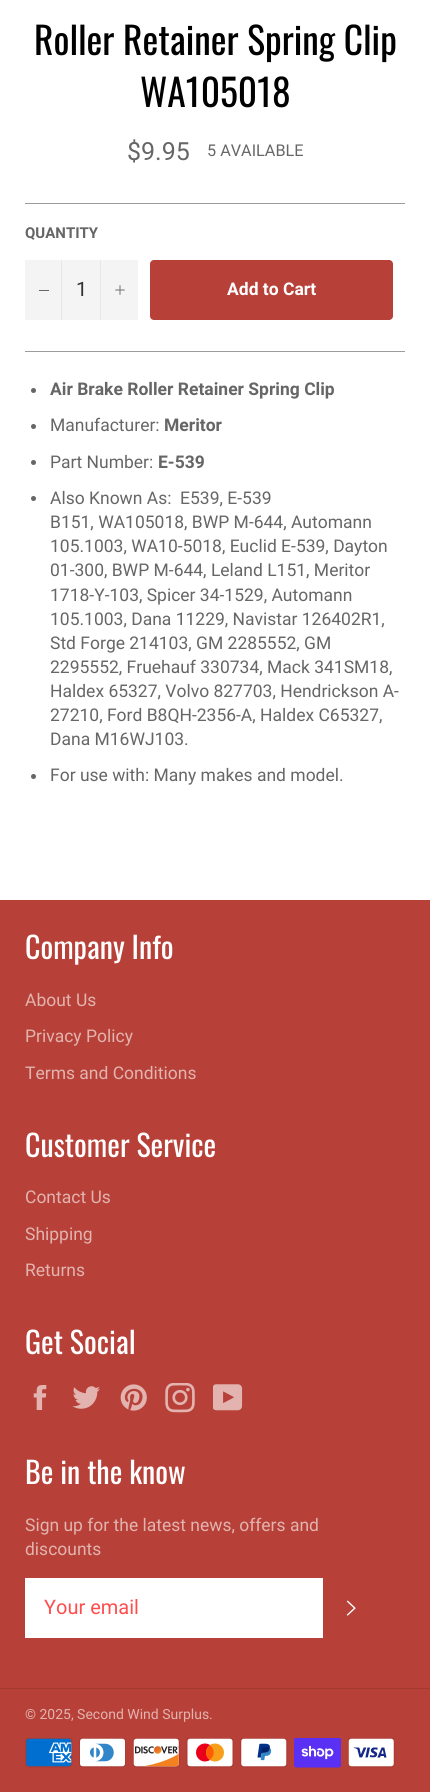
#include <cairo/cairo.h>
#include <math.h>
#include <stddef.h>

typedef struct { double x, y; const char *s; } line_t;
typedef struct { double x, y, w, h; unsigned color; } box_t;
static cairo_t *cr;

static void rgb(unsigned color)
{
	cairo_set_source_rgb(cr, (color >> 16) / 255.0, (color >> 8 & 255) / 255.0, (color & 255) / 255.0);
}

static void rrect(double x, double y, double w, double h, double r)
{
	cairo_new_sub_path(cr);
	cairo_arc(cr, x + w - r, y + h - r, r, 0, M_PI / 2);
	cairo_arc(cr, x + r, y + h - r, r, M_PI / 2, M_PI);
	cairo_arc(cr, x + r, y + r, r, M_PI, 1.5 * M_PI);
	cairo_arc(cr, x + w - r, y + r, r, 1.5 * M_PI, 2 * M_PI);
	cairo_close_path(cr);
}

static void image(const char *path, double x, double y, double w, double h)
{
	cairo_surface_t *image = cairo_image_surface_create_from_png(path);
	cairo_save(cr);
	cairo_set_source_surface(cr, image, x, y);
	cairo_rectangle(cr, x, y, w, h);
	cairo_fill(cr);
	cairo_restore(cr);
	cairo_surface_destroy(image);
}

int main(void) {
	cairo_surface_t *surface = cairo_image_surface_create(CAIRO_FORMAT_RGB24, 430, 1792);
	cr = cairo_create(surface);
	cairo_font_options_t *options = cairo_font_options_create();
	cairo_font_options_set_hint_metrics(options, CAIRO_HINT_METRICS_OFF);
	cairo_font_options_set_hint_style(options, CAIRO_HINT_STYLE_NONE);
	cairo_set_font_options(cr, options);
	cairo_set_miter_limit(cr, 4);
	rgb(0xffffff);
	cairo_paint(cr);
	{
		static const box_t items[] = {
			{25, 203, 380, 1, 0x9a9d9a},
			{25, 260, 113, 60, 0xf4f4f4},
			{61, 260, 1, 60, 0xe7e7e7},
			{39, 290, 10, 1, 0x666666},
			{100, 260, 1, 60, 0xe7e7e7},
		};
		for (size_t i = 0; i < sizeof items / sizeof *items; i++) {
			rgb(items[i].color);
			cairo_rectangle(cr, items[i].x, items[i].y, items[i].w, items[i].h);
			cairo_fill(cr);
		}
	}
	image("img/1.png", 115, 285, 10, 10);
	rgb(0xb74138);
	rrect(150, 260, 243, 60, 4);
	cairo_fill(cr);
	rgb(0x9a9d9a);
	cairo_rectangle(cr, 25, 351, 380, 1);
	cairo_fill(cr);
	rgb(0x666666);
	cairo_arc(cr, 33.5, 390.5, 2.5, 0, 2 * M_PI);
	cairo_fill(cr);
	cairo_arc(cr, 33.5, 426.5, 2.5, 0, 2 * M_PI);
	cairo_fill(cr);
	cairo_arc(cr, 33.5, 462.5, 2.5, 0, 2 * M_PI);
	cairo_fill(cr);
	cairo_arc(cr, 33.5, 498.5, 2.5, 0, 2 * M_PI);
	cairo_fill(cr);
	cairo_arc(cr, 33.5, 776.5, 2.5, 0, 2 * M_PI);
	cairo_fill(cr);
	rgb(0xb74138);
	cairo_rectangle(cr, 0, 900, 430, 892);
	cairo_fill(cr);
	image("img/2.png", 33, 1385, 14, 25);
	image("img/3.png", 72, 1386, 28, 23);
	image("img/4.png", 120, 1384, 27, 27);
	image("img/5.png", 165, 1383, 30, 30);
	image("img/6.png", 213, 1384, 30, 27);
	rgb(0xffffff);
	cairo_rectangle(cr, 25, 1578, 298, 60);
	cairo_fill(cr);
	image("img/7.png", 346, 1600, 10, 16);
	rgb(0xa33a32);
	cairo_rectangle(cr, 0, 1688, 430, 1);
	cairo_fill(cr);
	image("img/8.png", 25, 1738, 48, 30);
	image("img/9.png", 79, 1738, 47, 30);
	image("img/10.png", 133, 1738, 47, 30);
	image("img/11.png", 186, 1738, 48, 30);
	image("img/12.png", 240, 1738, 48, 30);
	image("img/13.png", 294, 1738, 47, 30);
	image("img/14.png", 348, 1738, 47, 30);
	cairo_select_font_face(cr, "Oswald", CAIRO_FONT_SLANT_NORMAL, CAIRO_FONT_WEIGHT_NORMAL);
	cairo_set_font_size(cr, 37.5);
	rgb(0x000000);
	cairo_move_to(cr, 34, 55);
	cairo_show_text(cr, "Roller Retainer Spring Clip");
	cairo_move_to(cr, 140, 107);
	cairo_show_text(cr, "WA105018");
	cairo_select_font_face(cr, "Roboto", CAIRO_FONT_SLANT_NORMAL, CAIRO_FONT_WEIGHT_NORMAL);
	cairo_set_font_size(cr, 25);
	rgb(0x666666);
	cairo_move_to(cr, 127, 160);
	cairo_show_text(cr, "$9.95");
	cairo_set_font_size(cr, 16.25);
	cairo_move_to(cr, 207, 156);
	cairo_show_text(cr, "5 AVAILABLE");
	cairo_select_font_face(cr, "Roboto", CAIRO_FONT_SLANT_NORMAL, CAIRO_FONT_WEIGHT_BOLD);
	cairo_set_font_size(cr, 15);
	cairo_move_to(cr, 25, 238);
	cairo_show_text(cr, "QUANTITY");
	cairo_select_font_face(cr, "Roboto", CAIRO_FONT_SLANT_NORMAL, CAIRO_FONT_WEIGHT_NORMAL);
	cairo_set_font_size(cr, 20);
	rgb(0x333333);
	cairo_move_to(cr, 76, 296);
	cairo_show_text(cr, "1");
	cairo_select_font_face(cr, "Roboto", CAIRO_FONT_SLANT_NORMAL, CAIRO_FONT_WEIGHT_BOLD);
	cairo_set_font_size(cr, 17.5);
	rgb(0xffffff);
	cairo_move_to(cr, 227, 295);
	cairo_show_text(cr, "Add to Cart");
	rgb(0x666666);
	cairo_move_to(cr, 50, 395);
	cairo_show_text(cr, "Air Brake Roller Retainer Spring Clip");
	cairo_select_font_face(cr, "Roboto", CAIRO_FONT_SLANT_NORMAL, CAIRO_FONT_WEIGHT_NORMAL);
	cairo_move_to(cr, 50, 431);
	cairo_show_text(cr, "Manufacturer:");
	cairo_select_font_face(cr, "Roboto", CAIRO_FONT_SLANT_NORMAL, CAIRO_FONT_WEIGHT_BOLD);
	cairo_move_to(cr, 164, 431);
	cairo_show_text(cr, "Meritor");
	cairo_select_font_face(cr, "Roboto", CAIRO_FONT_SLANT_NORMAL, CAIRO_FONT_WEIGHT_NORMAL);
	cairo_move_to(cr, 50, 468);
	cairo_show_text(cr, "Part Number:");
	cairo_select_font_face(cr, "Roboto", CAIRO_FONT_SLANT_NORMAL, CAIRO_FONT_WEIGHT_BOLD);
	cairo_move_to(cr, 158, 468);
	cairo_show_text(cr, "E-539");
	cairo_select_font_face(cr, "Roboto", CAIRO_FONT_SLANT_NORMAL, CAIRO_FONT_WEIGHT_NORMAL);
	{
		static const line_t items[] = {
			{50, 504, "Also Known As:  E539, E-539"},
			{50, 528, "B151, WA105018, BWP M-644, Automann"},
			{50, 552, "105.1003, WA10-5018, Euclid E-539, Dayton"},
			{50, 576, "01-300, BWP M-644, Leland L151, Meritor"},
			{50, 601, "1718-Y-103, Spicer 34-1529, Automann"},
			{50, 625, "105.1003, Dana 11229, Navistar 126402R1,"},
			{50, 649, "Std Forge 214103, GM 2285552, GM"},
			{50, 673, "2295552, Fruehauf 330734, Mack 341SM18,"},
			{50, 697, "Haldex 65327, Volvo 827703, Hendrickson A-"},
			{50, 721, "27210, Ford B8QH-2356-A, Haldex C65327,"},
			{50, 745, "Dana M16WJ103."},
			{50, 781, "For use with: Many makes and model."},
		};
		for (size_t i = 0; i < sizeof items / sizeof *items; i++) {
			cairo_move_to(cr, items[i].x, items[i].y);
			cairo_show_text(cr, items[i].s);
		}
	}
	cairo_select_font_face(cr, "Oswald", CAIRO_FONT_SLANT_NORMAL, CAIRO_FONT_WEIGHT_NORMAL);
	cairo_set_font_size(cr, 30);
	rgb(0xffffff);
	cairo_move_to(cr, 25, 959);
	cairo_show_text(cr, "Company Info");
	cairo_select_font_face(cr, "Roboto", CAIRO_FONT_SLANT_NORMAL, CAIRO_FONT_WEIGHT_NORMAL);
	cairo_set_font_size(cr, 17.5);
	rgb(0xe2b3af);
	{
		static const line_t items[] = {
			{25, 1006, "About Us"},
			{25, 1042, "Privacy Policy"},
			{25, 1079, "Terms and Conditions"},
		};
		for (size_t i = 0; i < sizeof items / sizeof *items; i++) {
			cairo_move_to(cr, items[i].x, items[i].y);
			cairo_show_text(cr, items[i].s);
		}
	}
	cairo_select_font_face(cr, "Oswald", CAIRO_FONT_SLANT_NORMAL, CAIRO_FONT_WEIGHT_NORMAL);
	cairo_set_font_size(cr, 30);
	rgb(0xffffff);
	cairo_move_to(cr, 25, 1157);
	cairo_show_text(cr, "Customer Service");
	cairo_select_font_face(cr, "Roboto", CAIRO_FONT_SLANT_NORMAL, CAIRO_FONT_WEIGHT_NORMAL);
	cairo_set_font_size(cr, 17.5);
	rgb(0xe2b3af);
	{
		static const line_t items[] = {
			{25, 1203, "Contact Us"},
			{25, 1240, "Shipping"},
			{25, 1276, "Returns"},
		};
		for (size_t i = 0; i < sizeof items / sizeof *items; i++) {
			cairo_move_to(cr, items[i].x, items[i].y);
			cairo_show_text(cr, items[i].s);
		}
	}
	cairo_select_font_face(cr, "Oswald", CAIRO_FONT_SLANT_NORMAL, CAIRO_FONT_WEIGHT_NORMAL);
	cairo_set_font_size(cr, 30);
	rgb(0xffffff);
	cairo_move_to(cr, 25, 1354);
	cairo_show_text(cr, "Get Social");
	cairo_move_to(cr, 25, 1484);
	cairo_show_text(cr, "Be in the know");
	cairo_select_font_face(cr, "Roboto", CAIRO_FONT_SLANT_NORMAL, CAIRO_FONT_WEIGHT_NORMAL);
	cairo_set_font_size(cr, 17.5);
	rgb(0xe2b3af);
	cairo_move_to(cr, 25, 1531);
	cairo_show_text(cr, "Sign up for the latest news, offers and");
	cairo_move_to(cr, 25, 1555);
	cairo_show_text(cr, "discounts");
	cairo_set_font_size(cr, 20);
	rgb(0xff4d4d);
	cairo_move_to(cr, 44, 1614);
	cairo_show_text(cr, "Your email");
	cairo_set_font_size(cr, 14);
	rgb(0xe2b3af);
	cairo_move_to(cr, 25, 1719);
	cairo_show_text(cr, "© 2025, Second Wind Surplus.");
	cairo_surface_write_to_png(surface, "page.png");
	cairo_font_options_destroy(options);
	cairo_destroy(cr);
	cairo_surface_destroy(surface);
	return 0;
}
